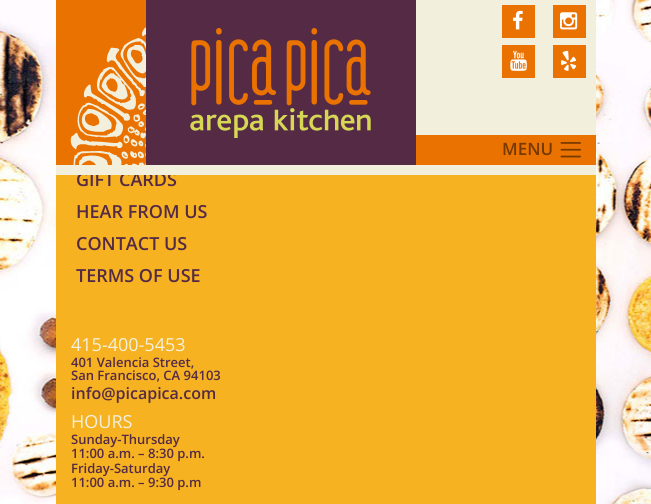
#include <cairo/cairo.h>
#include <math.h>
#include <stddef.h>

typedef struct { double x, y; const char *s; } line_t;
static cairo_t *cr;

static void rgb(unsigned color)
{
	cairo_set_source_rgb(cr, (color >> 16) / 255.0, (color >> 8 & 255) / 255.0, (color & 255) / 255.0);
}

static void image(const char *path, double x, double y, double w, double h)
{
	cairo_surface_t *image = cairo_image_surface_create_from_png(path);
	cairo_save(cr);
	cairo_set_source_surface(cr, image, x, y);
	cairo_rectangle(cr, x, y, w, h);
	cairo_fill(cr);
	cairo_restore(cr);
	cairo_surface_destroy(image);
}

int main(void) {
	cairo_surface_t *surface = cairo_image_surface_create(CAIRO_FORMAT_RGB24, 651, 504);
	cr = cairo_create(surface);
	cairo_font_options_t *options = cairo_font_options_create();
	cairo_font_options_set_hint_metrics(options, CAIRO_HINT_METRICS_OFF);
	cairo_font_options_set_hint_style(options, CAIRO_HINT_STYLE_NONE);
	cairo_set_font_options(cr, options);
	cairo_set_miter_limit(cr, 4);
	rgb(0xffffff);
	cairo_paint(cr);
	image("img/1.png", 0, 0, 651, 504);
	rgb(0xf6b221);
	cairo_rectangle(cr, 56, 175, 540, 329);
	cairo_fill(cr);
	cairo_select_font_face(cr, "Open Sans SemiBold", CAIRO_FONT_SLANT_NORMAL, CAIRO_FONT_WEIGHT_NORMAL);
	cairo_set_font_size(cr, 18);
	rgb(0x542a44);
	cairo_move_to(cr, 76, 186);
	cairo_show_text(cr, "GIFT CARDS");
	rgb(0xf2f0dd);
	cairo_rectangle(cr, 56, 0, 540, 175);
	cairo_fill(cr);
	rgb(0xea7200);
	cairo_rectangle(cr, 416, 135, 180, 30);
	cairo_fill(cr);
	image("img/8.png", 560, 142, 21, 16);
	cairo_set_font_size(cr, 17);
	rgb(0x753900);
	cairo_move_to(cr, 502, 155);
	cairo_show_text(cr, "MENU");
	rgb(0xea7200);
	cairo_rectangle(cr, 553, 45, 33, 33);
	cairo_fill(cr);
	image("img/7.png", 561, 50, 16, 21);
	cairo_rectangle(cr, 502, 45, 33, 33);
	cairo_fill(cr);
	image("img/6.png", 510, 50, 17, 21);
	cairo_rectangle(cr, 553, 5, 33, 33);
	cairo_fill(cr);
	image("img/5.png", 560, 12, 18, 18);
	cairo_rectangle(cr, 502, 5, 33, 33);
	cairo_fill(cr);
	image("img/4.png", 513, 10, 10, 20);
	rgb(0x542a44);
	cairo_rectangle(cr, 146, 0, 270, 165);
	cairo_fill(cr);
	image("img/3.png", 190, 28, 181, 110);
	rgb(0xea7200);
	cairo_rectangle(cr, 56, 0, 90, 165);
	cairo_fill(cr);
	image("img/2.png", 70, 27, 76, 138);
	cairo_set_font_size(cr, 18);
	rgb(0x542a44);
	{
		static const line_t items[] = {
			{76, 218, "HEAR FROM US"},
			{76, 250, "CONTACT US"},
			{76, 282, "TERMS OF USE"},
		};
		for (size_t i = 0; i < sizeof items / sizeof *items; i++) {
			cairo_move_to(cr, items[i].x, items[i].y);
			cairo_show_text(cr, items[i].s);
		}
	}
	cairo_select_font_face(cr, "Open Sans", CAIRO_FONT_SLANT_NORMAL, CAIRO_FONT_WEIGHT_NORMAL);
	rgb(0xf2f0dd);
	cairo_move_to(cr, 71, 351);
	cairo_show_text(cr, "415-400-5453");
	cairo_select_font_face(cr, "Open Sans SemiBold", CAIRO_FONT_SLANT_NORMAL, CAIRO_FONT_WEIGHT_NORMAL);
	cairo_set_font_size(cr, 13);
	rgb(0x542a44);
	cairo_move_to(cr, 71, 367);
	cairo_show_text(cr, "401 Valencia Street,");
	cairo_move_to(cr, 71, 380);
	cairo_show_text(cr, "San Francisco, CA 94103");
	cairo_set_font_size(cr, 16);
	cairo_move_to(cr, 71, 399);
	cairo_show_text(cr, "info@picapica.com");
	cairo_select_font_face(cr, "Open Sans", CAIRO_FONT_SLANT_NORMAL, CAIRO_FONT_WEIGHT_NORMAL);
	cairo_set_font_size(cr, 18);
	rgb(0xf2f0dd);
	cairo_move_to(cr, 71, 428);
	cairo_show_text(cr, "HOURS");
	cairo_select_font_face(cr, "Open Sans SemiBold", CAIRO_FONT_SLANT_NORMAL, CAIRO_FONT_WEIGHT_NORMAL);
	cairo_set_font_size(cr, 13);
	rgb(0x542a44);
	{
		static const line_t items[] = {
			{71, 444, "Sunday-Thursday"},
			{71, 458, "11:00 a.m. – 8:30 p.m."},
			{71, 473, "Friday-Saturday"},
			{71, 487, "11:00 a.m. – 9:30 p.m"},
		};
		for (size_t i = 0; i < sizeof items / sizeof *items; i++) {
			cairo_move_to(cr, items[i].x, items[i].y);
			cairo_show_text(cr, items[i].s);
		}
	}
	cairo_surface_write_to_png(surface, "page.png");
	cairo_font_options_destroy(options);
	cairo_destroy(cr);
	cairo_surface_destroy(surface);
	return 0;
}
